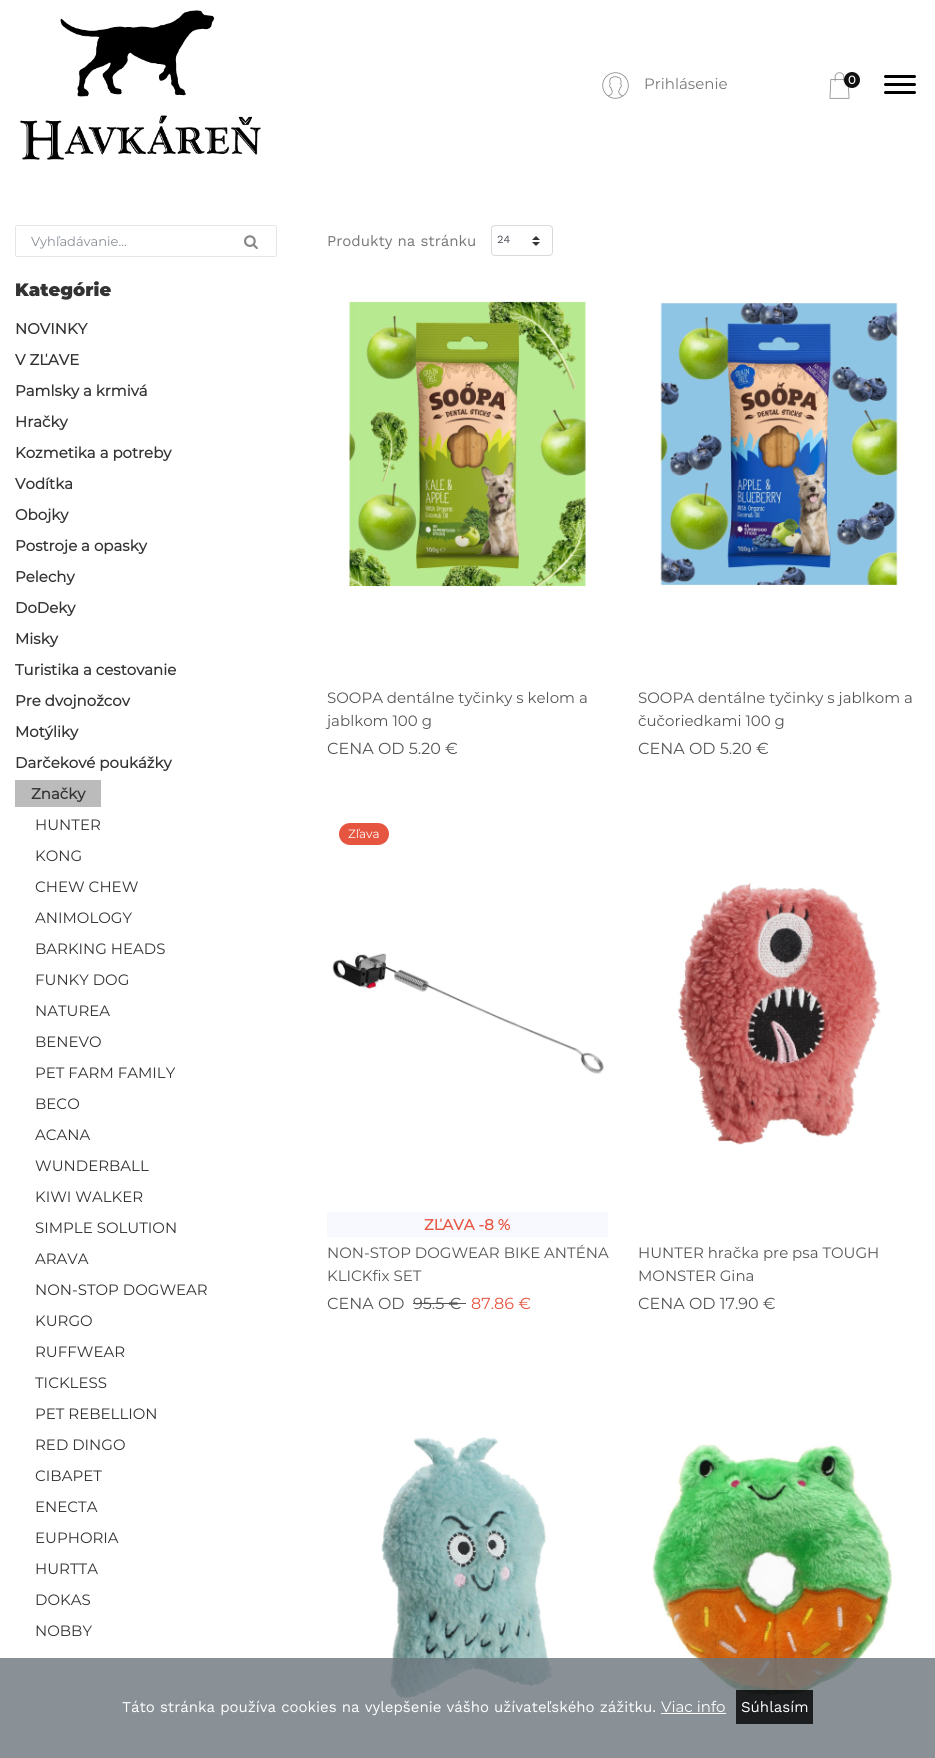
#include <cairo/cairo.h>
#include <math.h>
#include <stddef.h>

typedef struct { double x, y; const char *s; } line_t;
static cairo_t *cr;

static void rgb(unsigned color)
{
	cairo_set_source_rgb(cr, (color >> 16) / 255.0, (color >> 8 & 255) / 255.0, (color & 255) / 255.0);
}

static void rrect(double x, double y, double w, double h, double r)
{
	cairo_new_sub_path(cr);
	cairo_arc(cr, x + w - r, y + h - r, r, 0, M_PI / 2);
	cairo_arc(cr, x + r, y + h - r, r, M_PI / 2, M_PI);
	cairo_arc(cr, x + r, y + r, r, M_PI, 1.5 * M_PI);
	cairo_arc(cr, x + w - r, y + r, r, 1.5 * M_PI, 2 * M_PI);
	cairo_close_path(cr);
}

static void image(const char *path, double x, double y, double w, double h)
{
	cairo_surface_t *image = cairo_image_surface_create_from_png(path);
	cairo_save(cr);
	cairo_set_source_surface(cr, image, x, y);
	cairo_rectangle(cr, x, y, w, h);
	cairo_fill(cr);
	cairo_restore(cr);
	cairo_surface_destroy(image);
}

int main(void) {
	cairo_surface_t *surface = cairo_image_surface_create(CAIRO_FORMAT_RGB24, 935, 1758);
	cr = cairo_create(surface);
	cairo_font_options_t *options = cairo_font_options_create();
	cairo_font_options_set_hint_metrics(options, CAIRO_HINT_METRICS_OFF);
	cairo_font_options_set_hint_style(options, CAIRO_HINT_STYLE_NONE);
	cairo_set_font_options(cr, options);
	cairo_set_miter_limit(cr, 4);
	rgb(0xffffff);
	cairo_paint(cr);
	image("img/1.png", 20, 10, 241, 150);
	image("img/2.png", 602, 72, 27, 27);
	image("img/3.png", 829, 72, 21, 27);
	rgb(0x111111);
	cairo_arc(cr, 852, 80, 8, 0, 2 * M_PI);
	cairo_fill(cr);
	rgb(0x000000);
	rrect(884, 83, 32, 3, 1.5);
	cairo_fill(cr);
	rrect(884, 75, 32, 3, 1.5);
	cairo_fill(cr);
	rrect(884, 91, 32, 3, 1.5);
	cairo_fill(cr);
	rrect(15.5, 225.5, 261, 31, 1.5);
	rgb(0xe6e6e6);
	cairo_set_line_width(cr, 1);
	cairo_stroke(cr);
	image("img/4.png", 244, 235, 14, 15);
	rgb(0xbbbbbb);
	cairo_rectangle(cr, 15, 780, 86, 27);
	cairo_fill(cr);
	image("img/5.png", 532, 236, 8, 10);
	rrect(491.5, 225.5, 61, 30, 3.5);
	rgb(0xd9d9d9);
	cairo_stroke(cr);
	image("img/6.png", 349, 301, 237, 286);
	image("img/7.png", 660, 302, 238, 285);
	rgb(0xe65540);
	rrect(339, 823, 50, 22, 11);
	cairo_fill(cr);
	image("img/8.png", 332, 953, 272, 121);
	rgb(0xf8f8ff);
	cairo_rectangle(cr, 327, 1212, 281, 25);
	cairo_fill(cr);
	rgb(0x555555);
	cairo_rectangle(cr, 413, 1303, 53, 1);
	cairo_fill(cr);
	image("img/9.png", 677, 882, 204, 263);
	image("img/10.png", 381, 1437, 172, 261);
	image("img/11.png", 652, 1444, 240, 253);
	cairo_set_source_rgba(cr, 0.424, 0.459, 0.49, 0.8);
	cairo_rectangle(cr, 0, 1658, 935, 100);
	cairo_fill(cr);
	rgb(0xffffff);
	cairo_rectangle(cr, 661, 1713, 65, 1);
	cairo_fill(cr);
	cairo_set_source_rgba(cr, 0, 0, 0, 0.8);
	cairo_rectangle(cr, 736, 1690, 77, 34);
	cairo_fill(cr);
	cairo_select_font_face(cr, "Montserrat", CAIRO_FONT_SLANT_NORMAL, CAIRO_FONT_WEIGHT_NORMAL);
	cairo_set_font_size(cr, 15);
	rgb(0x777777);
	cairo_move_to(cr, 644, 89);
	cairo_show_text(cr, "Prihlásenie");
	cairo_select_font_face(cr, "Montserrat Medium", CAIRO_FONT_SLANT_NORMAL, CAIRO_FONT_WEIGHT_NORMAL);
	cairo_set_font_size(cr, 12);
	rgb(0xffffff);
	cairo_move_to(cr, 848, 84);
	cairo_show_text(cr, "0");
	cairo_select_font_face(cr, "Montserrat", CAIRO_FONT_SLANT_NORMAL, CAIRO_FONT_WEIGHT_NORMAL);
	cairo_set_font_size(cr, 13);
	rgb(0x868e96);
	cairo_move_to(cr, 31, 246);
	cairo_show_text(cr, "Vyhľadávanie...");
	cairo_select_font_face(cr, "Montserrat Black", CAIRO_FONT_SLANT_NORMAL, CAIRO_FONT_WEIGHT_NORMAL);
	cairo_set_font_size(cr, 18);
	rgb(0x333333);
	cairo_move_to(cr, 15, 296);
	cairo_show_text(cr, "Kategórie");
	cairo_select_font_face(cr, "Montserrat", CAIRO_FONT_SLANT_NORMAL, CAIRO_FONT_WEIGHT_BOLD);
	cairo_set_font_size(cr, 15);
	{
		static const line_t items[] = {
			{15, 334, "NOVINKY"},
			{15, 365, "V ZĽAVE"},
			{15, 396, "Pamlsky a krmivá"},
			{15, 427, "Hračky"},
			{15, 458, "Kozmetika a potreby"},
			{15, 489, "Vodítka"},
			{15, 520, "Obojky"},
			{15, 551, "Postroje a opasky"},
			{15, 582, "Pelechy"},
			{15, 613, "DoDeky"},
			{15, 644, "Misky"},
			{15, 675, "Turistika a cestovanie"},
			{15, 706, "Pre dvojnožcov"},
			{15, 737, "Motýliky"},
			{15, 768, "Darčekové poukážky"},
			{31, 799, "Značky"},
		};
		for (size_t i = 0; i < sizeof items / sizeof *items; i++) {
			cairo_move_to(cr, items[i].x, items[i].y);
			cairo_show_text(cr, items[i].s);
		}
	}
	cairo_select_font_face(cr, "Montserrat", CAIRO_FONT_SLANT_NORMAL, CAIRO_FONT_WEIGHT_NORMAL);
	{
		static const line_t items[] = {
			{35, 830, "HUNTER"},
			{35, 861, "KONG"},
			{35, 892, "CHEW CHEW"},
			{35, 923, "ANIMOLOGY"},
			{35, 954, "BARKING HEADS"},
			{35, 985, "FUNKY DOG"},
			{35, 1016, "NATUREA"},
			{35, 1047, "BENEVO"},
			{35, 1078, "PET FARM FAMILY"},
			{35, 1109, "BECO"},
			{35, 1140, "ACANA"},
			{35, 1171, "WUNDERBALL"},
			{35, 1202, "KIWI WALKER"},
			{35, 1233, "SIMPLE SOLUTION"},
			{35, 1264, "ARAVA"},
			{35, 1295, "NON-STOP DOGWEAR"},
			{35, 1326, "KURGO"},
			{35, 1357, "RUFFWEAR"},
			{35, 1388, "TICKLESS"},
			{35, 1419, "PET REBELLION"},
			{35, 1450, "RED DINGO"},
			{35, 1481, "CIBAPET"},
			{35, 1512, "ENECTA"},
			{35, 1543, "EUPHORIA"},
			{35, 1574, "HURTTA"},
			{35, 1605, "DOKAS"},
			{35, 1636, "NOBBY"},
		};
		for (size_t i = 0; i < sizeof items / sizeof *items; i++) {
			cairo_move_to(cr, items[i].x, items[i].y);
			cairo_show_text(cr, items[i].s);
		}
	}
	cairo_select_font_face(cr, "Work Sans", CAIRO_FONT_SLANT_NORMAL, CAIRO_FONT_WEIGHT_NORMAL);
	rgb(0x777777);
	cairo_move_to(cr, 327, 246);
	cairo_show_text(cr, "Produkty na stránku");
	cairo_set_font_size(cr, 11);
	rgb(0x495057);
	cairo_move_to(cr, 497, 243);
	cairo_show_text(cr, "24");
	cairo_select_font_face(cr, "Montserrat", CAIRO_FONT_SLANT_NORMAL, CAIRO_FONT_WEIGHT_NORMAL);
	cairo_set_font_size(cr, 15);
	rgb(0x555555);
	cairo_move_to(cr, 327, 703);
	cairo_show_text(cr, "SOOPA dentálne tyčinky s kelom a");
	cairo_move_to(cr, 327, 726);
	cairo_show_text(cr, "jablkom 100 g");
	cairo_set_font_size(cr, 16);
	cairo_move_to(cr, 327, 754);
	cairo_show_text(cr, "CENA OD 5.20 €");
	cairo_set_font_size(cr, 15);
	cairo_move_to(cr, 638, 703);
	cairo_show_text(cr, "SOOPA dentálne tyčinky s jablkom a");
	cairo_move_to(cr, 638, 726);
	cairo_show_text(cr, "čučoriedkami 100 g");
	cairo_set_font_size(cr, 16);
	cairo_move_to(cr, 638, 754);
	cairo_show_text(cr, "CENA OD 5.20 €");
	cairo_set_font_size(cr, 12);
	rgb(0xffffff);
	cairo_move_to(cr, 348, 838);
	cairo_show_text(cr, "Zľava");
	cairo_select_font_face(cr, "Montserrat", CAIRO_FONT_SLANT_NORMAL, CAIRO_FONT_WEIGHT_BOLD);
	cairo_set_font_size(cr, 15);
	rgb(0xe65540);
	cairo_move_to(cr, 424, 1230);
	cairo_show_text(cr, "ZĽAVA -8 %");
	cairo_select_font_face(cr, "Montserrat", CAIRO_FONT_SLANT_NORMAL, CAIRO_FONT_WEIGHT_NORMAL);
	rgb(0x555555);
	cairo_move_to(cr, 327, 1258);
	cairo_show_text(cr, "NON-STOP DOGWEAR BIKE ANTÉNA");
	cairo_move_to(cr, 327, 1281);
	cairo_show_text(cr, "KLICKfix SET");
	cairo_set_font_size(cr, 16);
	cairo_move_to(cr, 327, 1309);
	cairo_show_text(cr, "CENA OD");
	cairo_move_to(cr, 413, 1309);
	cairo_show_text(cr, "95.5 €");
	rgb(0xe65540);
	cairo_move_to(cr, 471, 1309);
	cairo_show_text(cr, "87.86 €");
	cairo_set_font_size(cr, 15);
	rgb(0x555555);
	cairo_move_to(cr, 638, 1258);
	cairo_show_text(cr, "HUNTER hračka pre psa TOUGH");
	cairo_move_to(cr, 638, 1281);
	cairo_show_text(cr, "MONSTER Gina");
	cairo_set_font_size(cr, 16);
	cairo_move_to(cr, 638, 1309);
	cairo_show_text(cr, "CENA OD 17.90 €");
	cairo_select_font_face(cr, "Work Sans", CAIRO_FONT_SLANT_NORMAL, CAIRO_FONT_WEIGHT_NORMAL);
	cairo_set_font_size(cr, 15);
	rgb(0xffffff);
	cairo_move_to(cr, 122, 1712);
	cairo_show_text(cr, "Táto stránka používa cookies na vylepšenie vášho užívateľského zážitku.");
	cairo_select_font_face(cr, "Montserrat", CAIRO_FONT_SLANT_NORMAL, CAIRO_FONT_WEIGHT_NORMAL);
	cairo_move_to(cr, 661, 1712);
	cairo_show_text(cr, "Viac info");
	cairo_select_font_face(cr, "Work Sans", CAIRO_FONT_SLANT_NORMAL, CAIRO_FONT_WEIGHT_NORMAL);
	cairo_move_to(cr, 741, 1712);
	cairo_show_text(cr, "Súhlasím");
	cairo_surface_write_to_png(surface, "page.png");
	cairo_font_options_destroy(options);
	cairo_destroy(cr);
	cairo_surface_destroy(surface);
	return 0;
}
